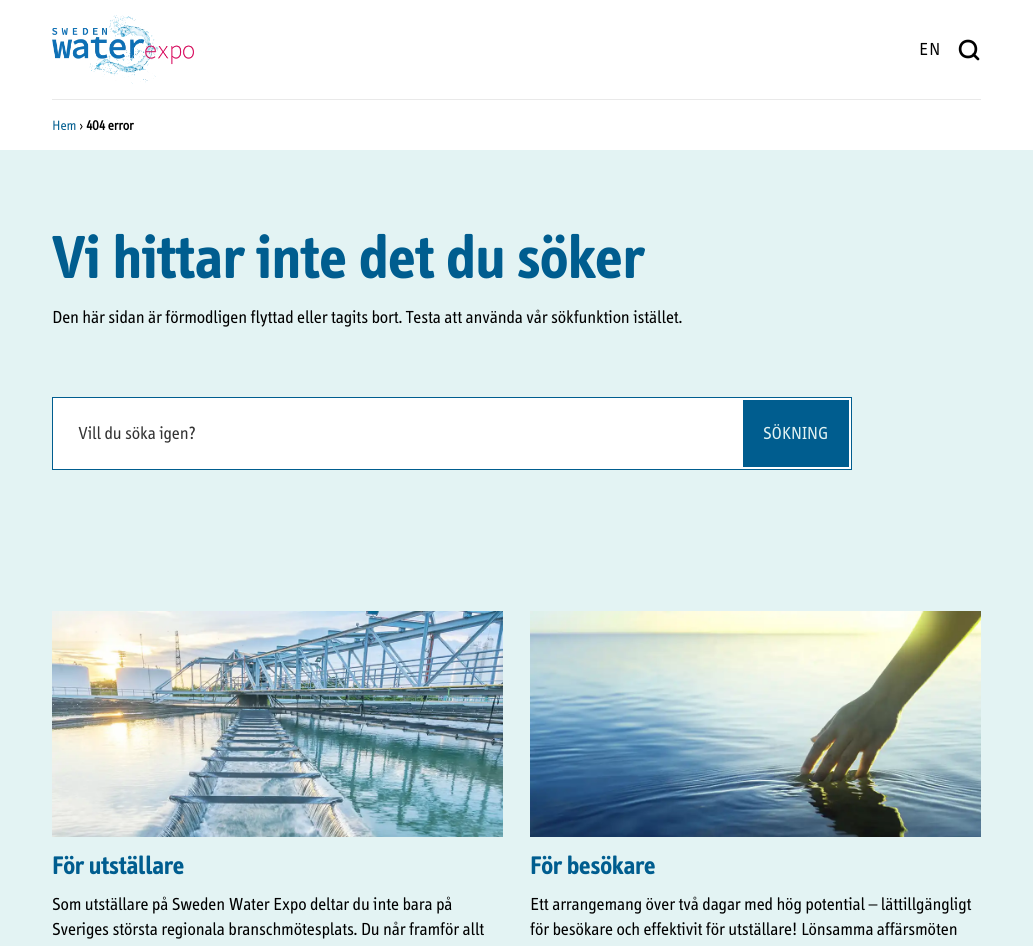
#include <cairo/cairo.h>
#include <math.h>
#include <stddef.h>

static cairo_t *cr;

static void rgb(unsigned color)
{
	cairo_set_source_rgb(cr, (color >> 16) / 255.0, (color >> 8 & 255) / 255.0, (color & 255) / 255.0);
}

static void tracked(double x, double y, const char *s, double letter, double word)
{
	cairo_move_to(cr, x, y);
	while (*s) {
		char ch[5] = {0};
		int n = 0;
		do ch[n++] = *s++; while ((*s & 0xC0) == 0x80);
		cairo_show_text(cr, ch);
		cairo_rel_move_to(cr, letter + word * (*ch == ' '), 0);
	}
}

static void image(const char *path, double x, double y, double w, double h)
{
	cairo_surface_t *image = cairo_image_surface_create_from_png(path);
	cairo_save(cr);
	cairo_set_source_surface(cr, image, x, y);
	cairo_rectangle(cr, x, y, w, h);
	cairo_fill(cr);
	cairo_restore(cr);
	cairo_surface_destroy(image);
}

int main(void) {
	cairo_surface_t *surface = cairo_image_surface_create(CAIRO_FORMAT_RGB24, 1033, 946);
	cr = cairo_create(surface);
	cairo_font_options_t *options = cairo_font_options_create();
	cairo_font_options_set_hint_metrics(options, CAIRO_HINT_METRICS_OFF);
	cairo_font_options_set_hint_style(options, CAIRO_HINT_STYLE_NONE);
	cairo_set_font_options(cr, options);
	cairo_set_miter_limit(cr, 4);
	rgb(0xffffff);
	cairo_paint(cr);
	rgb(0xe9e9e9);
	cairo_rectangle(cr, 52, 99, 929, 1);
	cairo_fill(cr);
	image("img/1.png", 52, 15, 142, 69);
	cairo_new_path(cr);
	cairo_move_to(cr, 968, 57);
	cairo_curve_to(cr, 978.5, 57, 978.5, 41, 968, 41);
	cairo_curve_to(cr, 957.5, 41, 957.5, 57, 968, 57);
	cairo_close_path(cr);
	cairo_move_to(cr, 978, 59);
	cairo_line_to(cr, 973.5, 54.5);
	rgb(0x000000);
	cairo_set_line_width(cr, 2.7);
	cairo_set_line_cap(cr, CAIRO_LINE_CAP_ROUND);
	cairo_set_line_join(cr, CAIRO_LINE_JOIN_ROUND);
	cairo_stroke(cr);
	rgb(0xe3f3f3);
	cairo_rectangle(cr, 0, 150, 1033, 796);
	cairo_fill(cr);
	cairo_rectangle(cr, 52.5, 397.5, 799, 72);
	rgb(0x005d8f);
	cairo_set_line_width(cr, 1);
	cairo_set_line_cap(cr, CAIRO_LINE_CAP_BUTT);
	cairo_set_line_join(cr, CAIRO_LINE_JOIN_MITER);
	cairo_stroke(cr);
	rgb(0xffffff);
	cairo_rectangle(cr, 53, 398, 688, 71);
	cairo_fill(cr);
	rgb(0x005d8f);
	cairo_rectangle(cr, 742, 399, 108, 69);
	cairo_fill_preserve(cr);
	rgb(0xffffff);
	cairo_set_line_width(cr, 2);
	cairo_stroke(cr);
	image("img/2.png", 52, 611, 451, 226);
	image("img/3.png", 530, 611, 451, 226);
	cairo_select_font_face(cr, "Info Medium", CAIRO_FONT_SLANT_NORMAL, CAIRO_FONT_WEIGHT_NORMAL);
	cairo_set_font_size(cr, 18);
	rgb(0x000000);
	tracked(919, 55, "EN", 1, 0);
	cairo_set_font_size(cr, 14);
	rgb(0x005d8f);
	cairo_move_to(cr, 52, 130);
	cairo_show_text(cr, "Hem");
	rgb(0x000000);
	cairo_move_to(cr, 79, 130);
	cairo_show_text(cr, "›");
	cairo_select_font_face(cr, "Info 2", CAIRO_FONT_SLANT_NORMAL, CAIRO_FONT_WEIGHT_BOLD);
	cairo_move_to(cr, 86, 130);
	cairo_show_text(cr, "404 error");
	cairo_select_font_face(cr, "Info", CAIRO_FONT_SLANT_NORMAL, CAIRO_FONT_WEIGHT_BOLD);
	cairo_set_font_size(cr, 62);
	rgb(0x005d8f);
	cairo_move_to(cr, 52, 278);
	cairo_show_text(cr, "Vi hittar inte det du söker");
	cairo_select_font_face(cr, "Info Medium", CAIRO_FONT_SLANT_NORMAL, CAIRO_FONT_WEIGHT_NORMAL);
	cairo_set_font_size(cr, 18);
	rgb(0x000000);
	cairo_move_to(cr, 52, 323);
	cairo_show_text(cr, "Den här sidan är förmodligen flyttad eller tagits bort. Testa att använda vår sökfunktion istället.");
	rgb(0x333333);
	cairo_move_to(cr, 78, 439);
	cairo_show_text(cr, "Vill du söka igen?");
	rgb(0xe3f3f3);
	cairo_move_to(cr, 763, 439);
	cairo_show_text(cr, "SÖKNING");
	cairo_select_font_face(cr, "Info", CAIRO_FONT_SLANT_NORMAL, CAIRO_FONT_WEIGHT_BOLD);
	cairo_set_font_size(cr, 26);
	rgb(0x005d8f);
	cairo_move_to(cr, 52, 874);
	cairo_show_text(cr, "För utställare");
	cairo_select_font_face(cr, "Info Medium", CAIRO_FONT_SLANT_NORMAL, CAIRO_FONT_WEIGHT_NORMAL);
	cairo_set_font_size(cr, 18);
	rgb(0x000000);
	cairo_move_to(cr, 52, 910);
	cairo_show_text(cr, "Som utställare på Sweden Water Expo deltar du inte bara på");
	cairo_move_to(cr, 52, 935);
	cairo_show_text(cr, "Sveriges största regionala branschmötesplats. Du når framför allt");
	cairo_select_font_face(cr, "Info", CAIRO_FONT_SLANT_NORMAL, CAIRO_FONT_WEIGHT_BOLD);
	cairo_set_font_size(cr, 26);
	rgb(0x005d8f);
	cairo_move_to(cr, 530, 874);
	cairo_show_text(cr, "För besökare");
	cairo_select_font_face(cr, "Info Medium", CAIRO_FONT_SLANT_NORMAL, CAIRO_FONT_WEIGHT_NORMAL);
	cairo_set_font_size(cr, 18);
	rgb(0x000000);
	cairo_move_to(cr, 530, 910);
	cairo_show_text(cr, "Ett arrangemang över två dagar med hög potential – lättillgängligt");
	cairo_move_to(cr, 530, 935);
	cairo_show_text(cr, "för besökare och effektivit för utställare! Lönsamma affärsmöten");
	cairo_surface_write_to_png(surface, "page.png");
	cairo_font_options_destroy(options);
	cairo_destroy(cr);
	cairo_surface_destroy(surface);
	return 0;
}
